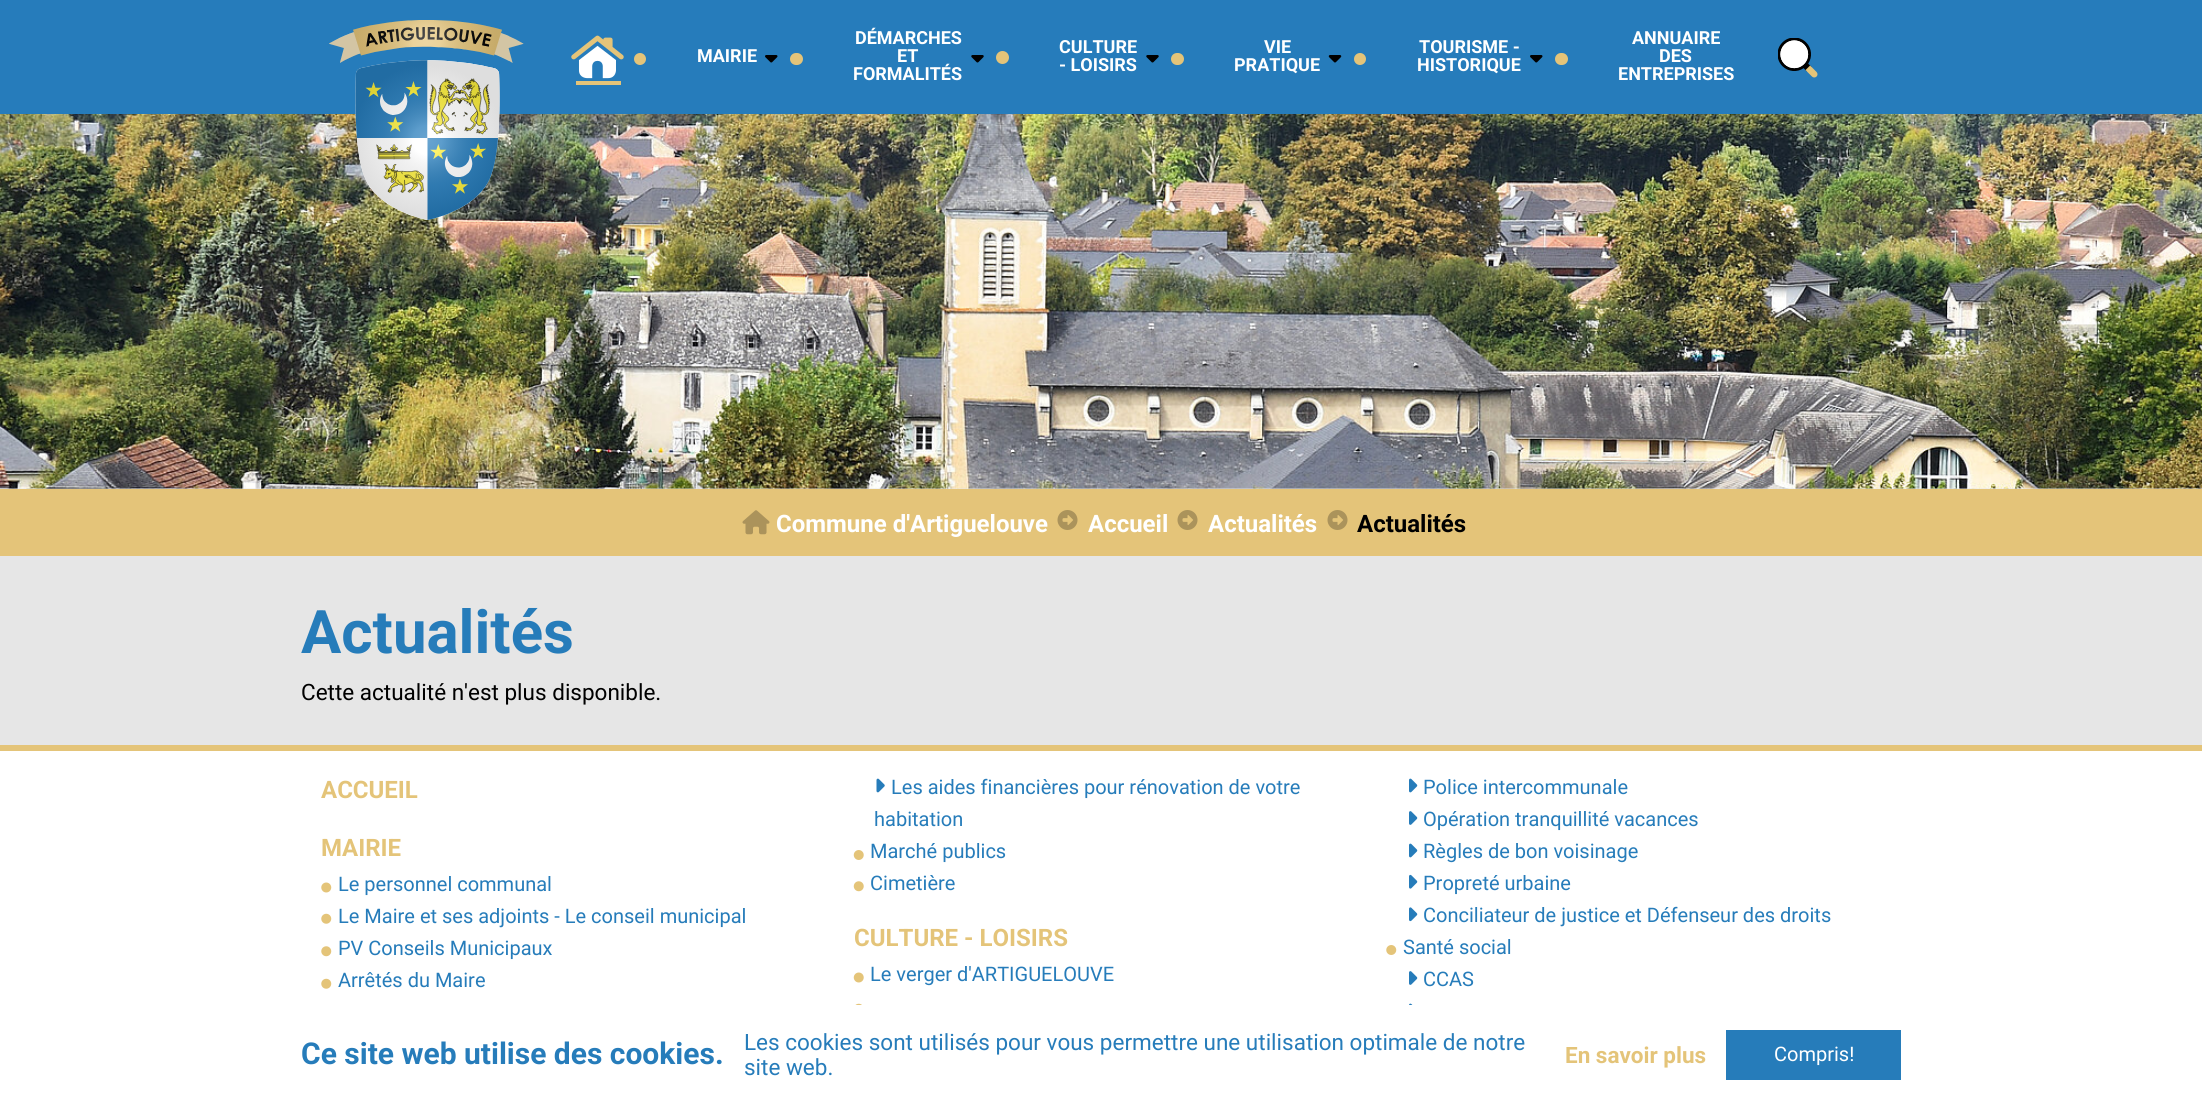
#include <cairo/cairo.h>
#include <math.h>
#include <stddef.h>

typedef struct { double x, y; const char *s; } line_t;
static cairo_t *cr;

static void rgb(unsigned color)
{
	cairo_set_source_rgb(cr, (color >> 16) / 255.0, (color >> 8 & 255) / 255.0, (color & 255) / 255.0);
}

static void rrect(double x, double y, double w, double h, double r)
{
	cairo_new_sub_path(cr);
	cairo_arc(cr, x + w - r, y + h - r, r, 0, M_PI / 2);
	cairo_arc(cr, x + r, y + h - r, r, M_PI / 2, M_PI);
	cairo_arc(cr, x + r, y + r, r, M_PI, 1.5 * M_PI);
	cairo_arc(cr, x + w - r, y + r, r, 1.5 * M_PI, 2 * M_PI);
	cairo_close_path(cr);
}

static void image(const char *path, double x, double y, double w, double h)
{
	cairo_surface_t *image = cairo_image_surface_create_from_png(path);
	cairo_save(cr);
	cairo_set_source_surface(cr, image, x, y);
	cairo_rectangle(cr, x, y, w, h);
	cairo_fill(cr);
	cairo_restore(cr);
	cairo_surface_destroy(image);
}

int main(void) {
	cairo_surface_t *surface = cairo_image_surface_create(CAIRO_FORMAT_RGB24, 2202, 1105);
	cr = cairo_create(surface);
	cairo_font_options_t *options = cairo_font_options_create();
	cairo_font_options_set_hint_metrics(options, CAIRO_HINT_METRICS_OFF);
	cairo_font_options_set_hint_style(options, CAIRO_HINT_STYLE_NONE);
	cairo_set_font_options(cr, options);
	cairo_set_miter_limit(cr, 4);
	rgb(0xe6e6e6);
	cairo_paint(cr);
	rgb(0x267cbb);
	cairo_rectangle(cr, 0, 0, 2202, 114);
	cairo_fill(cr);
	image("img/7.png", 0, 114, 2202, 375);
	image("img/1.png", 329, 20, 195, 200);
	image("img/2.png", 571, 35, 53, 44);
	rgb(0xe4c479);
	cairo_rectangle(cr, 576, 81, 45, 4);
	cairo_fill(cr);
	cairo_arc(cr, 640, 59, 6, 0, 2 * M_PI);
	cairo_fill(cr);
	image("img/3.png", 765, 55, 13, 8);
	rrect(790, 53, 13, 12, 6);
	cairo_fill(cr);
	image("img/4.png", 971, 55, 13, 8);
	cairo_arc(cr, 1002.5, 57.5, 6.5, 0, 2 * M_PI);
	cairo_fill(cr);
	image("img/4.png", 1146, 55, 13, 8);
	rrect(1171, 53, 13, 12, 6);
	cairo_fill(cr);
	image("img/5.png", 1328, 55, 14, 8);
	cairo_arc(cr, 1360, 59, 6, 0, 2 * M_PI);
	cairo_fill(cr);
	image("img/3.png", 1530, 55, 13, 8);
	rrect(1555, 53, 13, 12, 6);
	cairo_fill(cr);
	image("img/6.png", 1778, 38, 40, 40);
	cairo_rectangle(cr, 0, 489, 2202, 67);
	cairo_fill(cr);
	image("img/8.png", 742, 510, 28, 25);
	image("img/9.png", 1057, 510, 21, 20);
	image("img/9.png", 1177, 510, 21, 20);
	image("img/9.png", 1327, 510, 21, 20);
	rgb(0xffffff);
	cairo_rectangle(cr, 0, 751, 2202, 354);
	cairo_fill(cr);
	rgb(0xe4c479);
	cairo_rectangle(cr, 0, 745, 2202, 6);
	cairo_fill(cr);
	image("img/10.png", 876, 778, 9, 15);
	image("img/11.png", 853, 850, 11, 10);
	image("img/12.png", 853, 881, 11, 11);
	image("img/13.png", 1409, 778, 9, 15);
	image("img/14.png", 1409, 811, 9, 14);
	image("img/13.png", 1409, 843, 9, 15);
	image("img/15.png", 1409, 874, 9, 15);
	image("img/16.png", 1409, 907, 9, 15);
	image("img/17.png", 1386, 945, 11, 10);
	image("img/14.png", 1409, 971, 9, 14);
	image("img/18.png", 1409, 1003, 4, 2);
	image("img/19.png", 321, 882, 11, 11);
	image("img/20.png", 321, 913, 11, 11);
	image("img/21.png", 321, 946, 11, 11);
	image("img/20.png", 321, 978, 11, 11);
	image("img/22.png", 853, 972, 11, 11);
	image("img/23.png", 855, 1003, 7, 2);
	rgb(0x267cba);
	cairo_rectangle(cr, 1726, 1030, 175, 50);
	cairo_fill(cr);
	cairo_select_font_face(cr, "Roboto", CAIRO_FONT_SLANT_NORMAL, CAIRO_FONT_WEIGHT_BOLD);
	cairo_set_font_size(cr, 18);
	rgb(0xffffff);
	{
		static const line_t items[] = {
			{697, 62, "MAIRIE"},
			{855, 44, "DÉMARCHES"},
			{897, 62, "ET"},
			{853, 80, "FORMALITÉS"},
			{1059, 53, "CULTURE"},
			{1059, 71, "- LOISIRS"},
			{1264, 53, "VIE"},
			{1234, 71, "PRATIQUE"},
			{1419, 53, "TOURISME -"},
			{1417, 71, "HISTORIQUE"},
			{1632, 44, "ANNUAIRE"},
			{1659, 62, "DES"},
			{1618, 80, "ENTREPRISES"},
		};
		for (size_t i = 0; i < sizeof items / sizeof *items; i++) {
			cairo_move_to(cr, items[i].x, items[i].y);
			cairo_show_text(cr, items[i].s);
		}
	}
	cairo_set_font_size(cr, 24);
	{
		static const line_t items[] = {
			{776, 532, "Commune d'Artiguelouve"},
			{1088, 532, "Accueil"},
			{1208, 532, "Actualités"},
		};
		for (size_t i = 0; i < sizeof items / sizeof *items; i++) {
			cairo_move_to(cr, items[i].x, items[i].y);
			cairo_show_text(cr, items[i].s);
		}
	}
	rgb(0x000000);
	cairo_move_to(cr, 1357, 532);
	cairo_show_text(cr, "Actualités");
	cairo_set_font_size(cr, 60);
	rgb(0x267cba);
	cairo_move_to(cr, 301, 653);
	cairo_show_text(cr, "Actualités");
	cairo_select_font_face(cr, "Roboto", CAIRO_FONT_SLANT_NORMAL, CAIRO_FONT_WEIGHT_NORMAL);
	cairo_set_font_size(cr, 22.5);
	rgb(0x000000);
	cairo_move_to(cr, 301, 700);
	cairo_show_text(cr, "Cette actualité n'est plus disponible.");
	cairo_select_font_face(cr, "Roboto", CAIRO_FONT_SLANT_NORMAL, CAIRO_FONT_WEIGHT_BOLD);
	cairo_set_font_size(cr, 24);
	rgb(0xe4c479);
	cairo_move_to(cr, 321, 798);
	cairo_show_text(cr, "ACCUEIL");
	cairo_select_font_face(cr, "Roboto", CAIRO_FONT_SLANT_NORMAL, CAIRO_FONT_WEIGHT_NORMAL);
	cairo_set_font_size(cr, 20);
	rgb(0x267cba);
	{
		static const line_t items[] = {
			{891, 794, "Les aides financières pour rénovation de votre"},
			{874, 826, "habitation"},
			{870, 858, "Marché publics"},
			{870, 890, "Cimetière"},
			{1423, 794, "Police intercommunale"},
			{1423, 826, "Opération tranquillité vacances"},
			{1423, 858, "Règles de bon voisinage"},
			{1423, 890, "Propreté urbaine"},
			{1423, 922, "Conciliateur de justice et Défenseur des droits"},
			{1403, 954, "Santé social"},
			{1423, 986, "CCAS"},
		};
		for (size_t i = 0; i < sizeof items / sizeof *items; i++) {
			cairo_move_to(cr, items[i].x, items[i].y);
			cairo_show_text(cr, items[i].s);
		}
	}
	cairo_select_font_face(cr, "Roboto", CAIRO_FONT_SLANT_NORMAL, CAIRO_FONT_WEIGHT_BOLD);
	cairo_set_font_size(cr, 24);
	rgb(0xe4c479);
	cairo_move_to(cr, 321, 856);
	cairo_show_text(cr, "MAIRIE");
	cairo_select_font_face(cr, "Roboto", CAIRO_FONT_SLANT_NORMAL, CAIRO_FONT_WEIGHT_NORMAL);
	cairo_set_font_size(cr, 20);
	rgb(0x267cba);
	{
		static const line_t items[] = {
			{338, 891, "Le personnel communal"},
			{338, 923, "Le Maire et ses adjoints - Le conseil municipal"},
			{338, 955, "PV Conseils Municipaux"},
			{338, 987, "Arrêtés du Maire"},
		};
		for (size_t i = 0; i < sizeof items / sizeof *items; i++) {
			cairo_move_to(cr, items[i].x, items[i].y);
			cairo_show_text(cr, items[i].s);
		}
	}
	cairo_select_font_face(cr, "Roboto", CAIRO_FONT_SLANT_NORMAL, CAIRO_FONT_WEIGHT_BOLD);
	cairo_set_font_size(cr, 24);
	rgb(0xe4c479);
	cairo_move_to(cr, 854, 946);
	cairo_show_text(cr, "CULTURE - LOISIRS");
	cairo_select_font_face(cr, "Roboto", CAIRO_FONT_SLANT_NORMAL, CAIRO_FONT_WEIGHT_NORMAL);
	cairo_set_font_size(cr, 20);
	rgb(0x267cba);
	cairo_move_to(cr, 870, 981);
	cairo_show_text(cr, "Le verger d'ARTIGUELOUVE");
	cairo_select_font_face(cr, "Roboto", CAIRO_FONT_SLANT_NORMAL, CAIRO_FONT_WEIGHT_BOLD);
	cairo_set_font_size(cr, 30);
	cairo_move_to(cr, 301, 1064);
	cairo_show_text(cr, "Ce site web utilise des cookies.");
	cairo_select_font_face(cr, "Roboto", CAIRO_FONT_SLANT_NORMAL, CAIRO_FONT_WEIGHT_NORMAL);
	cairo_set_font_size(cr, 22.5);
	cairo_move_to(cr, 744, 1050);
	cairo_show_text(cr, "Les cookies sont utilisés pour vous permettre une utilisation optimale de notre");
	cairo_move_to(cr, 744, 1075);
	cairo_show_text(cr, "site web.");
	cairo_select_font_face(cr, "Roboto", CAIRO_FONT_SLANT_NORMAL, CAIRO_FONT_WEIGHT_BOLD);
	rgb(0xe4c479);
	cairo_move_to(cr, 1565, 1063);
	cairo_show_text(cr, "En savoir plus");
	cairo_select_font_face(cr, "Roboto", CAIRO_FONT_SLANT_NORMAL, CAIRO_FONT_WEIGHT_NORMAL);
	cairo_set_font_size(cr, 20);
	rgb(0xffffff);
	cairo_move_to(cr, 1774, 1061);
	cairo_show_text(cr, "Compris!");
	cairo_surface_write_to_png(surface, "page.png");
	cairo_font_options_destroy(options);
	cairo_destroy(cr);
	cairo_surface_destroy(surface);
	return 0;
}
